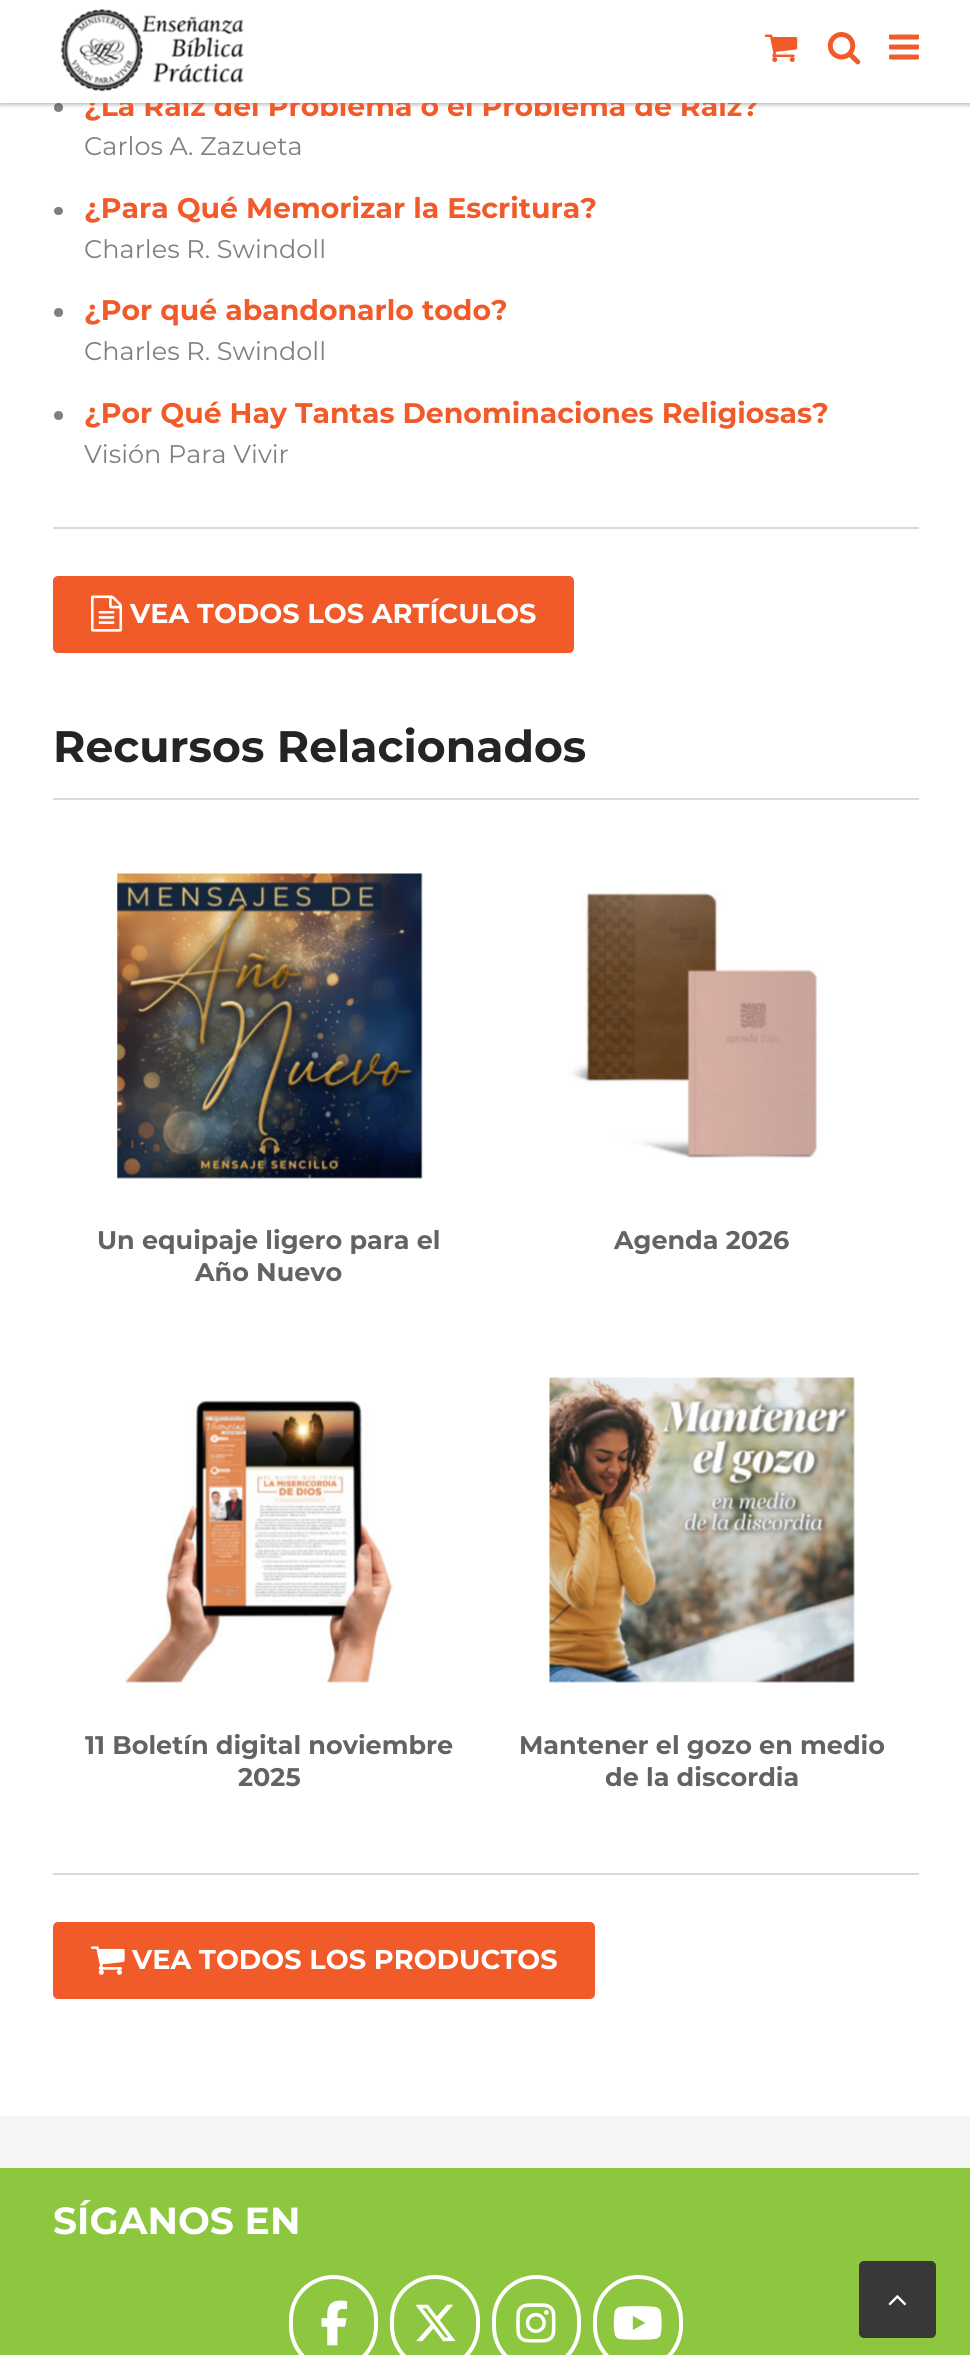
#include <cairo/cairo.h>
#include <math.h>
#include <stddef.h>

typedef struct { double x, y; const char *s; } line_t;
static cairo_t *cr;

static void rgb(unsigned color)
{
	cairo_set_source_rgb(cr, (color >> 16) / 255.0, (color >> 8 & 255) / 255.0, (color & 255) / 255.0);
}

static void rrect(double x, double y, double w, double h, double r)
{
	cairo_new_sub_path(cr);
	cairo_arc(cr, x + w - r, y + h - r, r, 0, M_PI / 2);
	cairo_arc(cr, x + r, y + h - r, r, M_PI / 2, M_PI);
	cairo_arc(cr, x + r, y + r, r, M_PI, 1.5 * M_PI);
	cairo_arc(cr, x + w - r, y + r, r, 1.5 * M_PI, 2 * M_PI);
	cairo_close_path(cr);
}

static void soft_shadow(double x, double y, double w, double h, double r, double blur, double alpha)
{
	cairo_push_group_with_content(cr, CAIRO_CONTENT_ALPHA);
	cairo_set_operator(cr, CAIRO_OPERATOR_SOURCE);
	for (int i = 15; i >= -15 && fmin(w, h) + blur * i / 3 > 0; i -= 2) {
		double e = blur * i / 6;
		cairo_set_source_rgba(cr, 0, 0, 0, alpha * erfc((i - 1) / 8.5) / 2);
		rrect(x - e, y - e, w + 2 * e, h + 2 * e, fmax(0, fmin(r + e + blur * .6, fmin(w, h) / 2 + e)));
		cairo_fill(cr);
	}
	cairo_pattern_t *soft = cairo_pop_group(cr);
	cairo_mask(cr, soft);
	cairo_pattern_destroy(soft);
}

static void image(const char *path, double x, double y, double w, double h)
{
	cairo_surface_t *image = cairo_image_surface_create_from_png(path);
	cairo_save(cr);
	cairo_set_source_surface(cr, image, x, y);
	cairo_rectangle(cr, x, y, w, h);
	cairo_fill(cr);
	cairo_restore(cr);
	cairo_surface_destroy(image);
}

int main(void) {
	cairo_surface_t *surface = cairo_image_surface_create(CAIRO_FORMAT_RGB24, 970, 2355);
	cr = cairo_create(surface);
	cairo_font_options_t *options = cairo_font_options_create();
	cairo_font_options_set_hint_metrics(options, CAIRO_HINT_METRICS_OFF);
	cairo_font_options_set_hint_style(options, CAIRO_HINT_STYLE_NONE);
	cairo_set_font_options(cr, options);
	cairo_set_miter_limit(cr, 4);
	rgb(0xffffff);
	cairo_paint(cr);
	rgb(0x7f7f7f);
	cairo_arc(cr, 58.5, 107.5, 4.5, 0, 2 * M_PI);
	cairo_fill(cr);
	rgb(0x000000);
	soft_shadow(0, 0, 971, 105, 0, 2, 0.25);
	rgb(0xdad9d9);
	cairo_rectangle(cr, 53, 527, 866, 2);
	cairo_fill(cr);
	rgb(0x7f7f7f);
	rrect(54, 207, 9, 8, 4);
	cairo_fill(cr);
	cairo_arc(cr, 58.5, 312.5, 4.5, 0, 2 * M_PI);
	cairo_fill(cr);
	cairo_arc(cr, 58.5, 415.5, 4.5, 0, 2 * M_PI);
	cairo_fill(cr);
	rgb(0xf15a29);
	rrect(53, 576, 521, 77, 5);
	cairo_fill(cr);
	image("img/5.png", 91, 595, 32, 37);
	rgb(0xdad9d9);
	cairo_rectangle(cr, 53, 798, 866, 2);
	cairo_fill(cr);
	cairo_rectangle(cr, 53, 1873, 866, 2);
	cairo_fill(cr);
	image("img/6.png", 117, 873, 306, 306);
	image("img/7.png", 568, 890, 250, 269);
	image("img/8.png", 125, 1400, 269, 283);
	image("img/9.png", 549, 1377, 306, 306);
	rgb(0xf15a29);
	rrect(53, 1922, 542, 77, 5);
	cairo_fill(cr);
	image("img/10.png", 91, 1946, 34, 29);
	rgb(0x8dc63f);
	cairo_rectangle(cr, 0, 2168, 970, 187);
	cairo_fill(cr);
	rgb(0xf6f6f6);
	cairo_rectangle(cr, 0, 2116, 970, 52);
	cairo_fill(cr);
	rrect(291, 2277, 85, 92, 42.5);
	rgb(0xffffff);
	cairo_set_line_width(cr, 4);
	cairo_stroke(cr);
	image("img/11.png", 321, 2300, 27, 46);
	rrect(392, 2277, 86, 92, 43);
	cairo_stroke(cr);
	image("img/12.png", 415, 2304, 41, 38);
	rrect(494, 2277, 85, 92, 42.5);
	cairo_stroke(cr);
	image("img/13.png", 516, 2303, 40, 40);
	rrect(595, 2277, 86, 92, 43);
	cairo_stroke(cr);
	image("img/14.png", 613, 2306, 49, 34);
	rgb(0x383838);
	rrect(859, 2261, 77, 77, 5);
	cairo_fill(cr);
	image("img/15.png", 888, 2295, 19, 11);
	cairo_select_font_face(cr, "Montserrat", CAIRO_FONT_SLANT_NORMAL, CAIRO_FONT_WEIGHT_BOLD);
	cairo_set_font_size(cr, 28.35);
	rgb(0xf15a29);
	cairo_move_to(cr, 84, 116);
	cairo_show_text(cr, "¿La Raíz del Problema o el Problema de Raíz?");
	rgb(0xffffff);
	cairo_rectangle(cr, 0, 0, 970, 103);
	cairo_fill(cr);
	image("img/2.png", 764, 34, 34, 28);
	image("img/4.png", 889, 34, 30, 26);
	image("img/3.png", 827, 32, 34, 33);
	image("img/1.png", 60, 9, 184, 83);
	cairo_select_font_face(cr, "Montserrat", CAIRO_FONT_SLANT_NORMAL, CAIRO_FONT_WEIGHT_NORMAL);
	cairo_set_font_size(cr, 25.5);
	rgb(0x7f7f7f);
	cairo_move_to(cr, 84, 155);
	cairo_show_text(cr, "Carlos A. Zazueta");
	cairo_select_font_face(cr, "Montserrat", CAIRO_FONT_SLANT_NORMAL, CAIRO_FONT_WEIGHT_BOLD);
	cairo_set_font_size(cr, 28.35);
	rgb(0xf15a29);
	cairo_move_to(cr, 84, 218);
	cairo_show_text(cr, "¿Para Qué Memorizar la Escritura?");
	cairo_select_font_face(cr, "Montserrat", CAIRO_FONT_SLANT_NORMAL, CAIRO_FONT_WEIGHT_NORMAL);
	cairo_set_font_size(cr, 25.5);
	rgb(0x7f7f7f);
	cairo_move_to(cr, 84, 258);
	cairo_show_text(cr, "Charles R. Swindoll");
	cairo_select_font_face(cr, "Montserrat", CAIRO_FONT_SLANT_NORMAL, CAIRO_FONT_WEIGHT_BOLD);
	cairo_set_font_size(cr, 28.35);
	rgb(0xf15a29);
	cairo_move_to(cr, 84, 320);
	cairo_show_text(cr, "¿Por qué abandonarlo todo?");
	cairo_select_font_face(cr, "Montserrat", CAIRO_FONT_SLANT_NORMAL, CAIRO_FONT_WEIGHT_NORMAL);
	cairo_set_font_size(cr, 25.5);
	rgb(0x7f7f7f);
	cairo_move_to(cr, 84, 360);
	cairo_show_text(cr, "Charles R. Swindoll");
	cairo_select_font_face(cr, "Montserrat", CAIRO_FONT_SLANT_NORMAL, CAIRO_FONT_WEIGHT_BOLD);
	cairo_set_font_size(cr, 28.35);
	rgb(0xf15a29);
	cairo_move_to(cr, 84, 423);
	cairo_show_text(cr, "¿Por Qué Hay Tantas Denominaciones Religiosas?");
	cairo_select_font_face(cr, "Montserrat", CAIRO_FONT_SLANT_NORMAL, CAIRO_FONT_WEIGHT_NORMAL);
	cairo_set_font_size(cr, 25.5);
	rgb(0x7f7f7f);
	cairo_move_to(cr, 84, 463);
	cairo_show_text(cr, "Visión Para Vivir");
	cairo_select_font_face(cr, "Montserrat", CAIRO_FONT_SLANT_NORMAL, CAIRO_FONT_WEIGHT_BOLD);
	cairo_set_font_size(cr, 27.2);
	rgb(0xffffff);
	cairo_move_to(cr, 130, 623);
	cairo_show_text(cr, "VEA TODOS LOS ARTÍCULOS");
	cairo_set_font_size(cr, 44.1);
	rgb(0x242424);
	cairo_move_to(cr, 53, 762);
	cairo_show_text(cr, "Recursos Relacionados");
	cairo_set_font_size(cr, 25.5);
	rgb(0x636363);
	{
		static const line_t items[] = {
			{97, 1249, "Un equipaje ligero para el"},
			{195, 1281, "Año Nuevo"},
			{614, 1249, "Agenda 2026"},
			{85, 1754, "11 Boletín digital noviembre"},
			{238, 1786, "2025"},
			{519, 1754, "Mantener el gozo en medio"},
			{605, 1786, "de la discordia"},
		};
		for (size_t i = 0; i < sizeof items / sizeof *items; i++) {
			cairo_move_to(cr, items[i].x, items[i].y);
			cairo_show_text(cr, items[i].s);
		}
	}
	cairo_set_font_size(cr, 27.2);
	rgb(0xffffff);
	cairo_move_to(cr, 132, 1969);
	cairo_show_text(cr, "VEA TODOS LOS PRODUCTOS");
	cairo_set_font_size(cr, 37.75);
	cairo_move_to(cr, 53, 2234);
	cairo_show_text(cr, "SÍGANOS EN");
	cairo_surface_write_to_png(surface, "page.png");
	cairo_font_options_destroy(options);
	cairo_destroy(cr);
	cairo_surface_destroy(surface);
	return 0;
}
